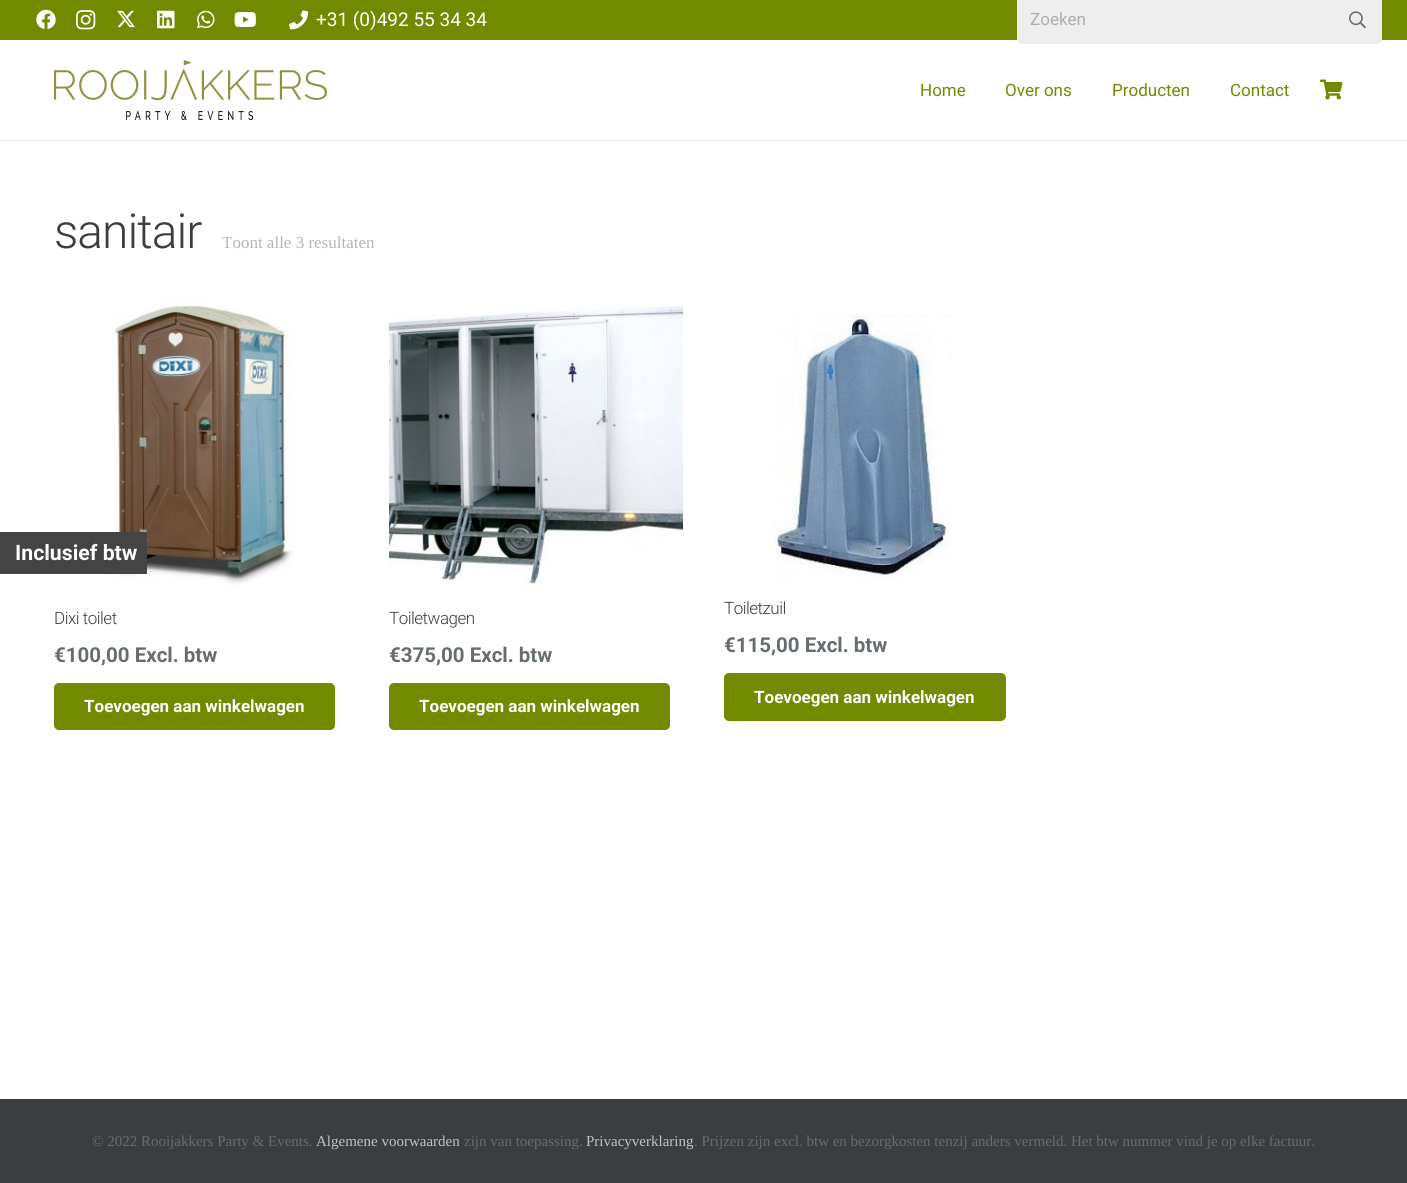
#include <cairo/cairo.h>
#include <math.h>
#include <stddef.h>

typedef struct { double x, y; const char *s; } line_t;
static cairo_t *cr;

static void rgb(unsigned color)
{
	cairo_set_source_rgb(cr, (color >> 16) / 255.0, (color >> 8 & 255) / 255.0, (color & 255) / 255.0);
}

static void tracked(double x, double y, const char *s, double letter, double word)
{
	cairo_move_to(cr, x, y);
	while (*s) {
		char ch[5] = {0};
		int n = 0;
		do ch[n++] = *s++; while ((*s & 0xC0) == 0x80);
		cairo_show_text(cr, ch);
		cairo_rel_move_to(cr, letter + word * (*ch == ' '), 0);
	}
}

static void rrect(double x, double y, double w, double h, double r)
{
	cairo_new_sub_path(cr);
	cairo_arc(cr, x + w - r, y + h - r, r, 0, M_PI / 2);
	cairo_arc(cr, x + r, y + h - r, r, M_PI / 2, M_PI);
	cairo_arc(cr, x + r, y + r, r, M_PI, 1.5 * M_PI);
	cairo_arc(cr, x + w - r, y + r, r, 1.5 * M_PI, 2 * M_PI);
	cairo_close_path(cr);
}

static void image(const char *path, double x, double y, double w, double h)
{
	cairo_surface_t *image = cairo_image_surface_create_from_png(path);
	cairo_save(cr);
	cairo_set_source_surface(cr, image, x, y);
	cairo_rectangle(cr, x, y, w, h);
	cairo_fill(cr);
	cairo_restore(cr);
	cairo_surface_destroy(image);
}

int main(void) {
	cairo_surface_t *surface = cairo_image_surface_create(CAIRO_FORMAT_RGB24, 1407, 1183);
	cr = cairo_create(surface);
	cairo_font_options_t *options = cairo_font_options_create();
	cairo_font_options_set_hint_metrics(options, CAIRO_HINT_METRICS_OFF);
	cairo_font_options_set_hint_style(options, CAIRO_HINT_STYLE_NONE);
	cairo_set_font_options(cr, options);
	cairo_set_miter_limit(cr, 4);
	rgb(0xffffff);
	cairo_paint(cr);
	rgb(0x728a00);
	cairo_rectangle(cr, 0, 0, 1407, 40);
	cairo_fill(cr);
	image("img/1.png", 36, 9, 20, 20);
	image("img/2.png", 76, 10, 20, 20);
	image("img/3.png", 117, 10, 18, 18);
	image("img/4.png", 157, 10, 18, 19);
	image("img/5.png", 197, 10, 18, 19);
	image("img/6.png", 234, 12, 22, 15);
	image("img/7.png", 289, 10, 19, 20);
	rgb(0xeeeeee);
	rrect(1017, -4, 365, 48, 5);
	cairo_fill(cr);
	rgb(0xd5d6d0);
	cairo_new_path(cr);
	cairo_move_to(cr, 1022, -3);
	cairo_line_to(cr, 1377, -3);
	cairo_curve_to(cr, 1380, -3, 1382, -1, 1382, 2);
	cairo_line_to(cr, 1382, 1);
	cairo_curve_to(cr, 1382, -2, 1380, -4, 1377, -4);
	cairo_line_to(cr, 1022, -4);
	cairo_curve_to(cr, 1019, -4, 1017, -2, 1017, 1);
	cairo_line_to(cr, 1017, 2);
	cairo_curve_to(cr, 1017, -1, 1019, -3, 1022, -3);
	cairo_close_path(cr);
	cairo_fill(cr);
	image("img/8.png", 1349, 11, 17, 18);
	rgb(0xebebeb);
	cairo_rectangle(cr, 0, 140, 1407, 1);
	cairo_fill(cr);
	image("img/9.png", 54, 60, 273, 60);
	image("img/10.png", 1320, 79, 23, 21);
	image("img/11.png", 109, 299, 188, 286);
	rgb(0x728a00);
	rrect(54, 683, 281, 47, 5);
	cairo_fill(cr);
	image("img/12.png", 389, 301, 294, 286);
	rrect(389, 683, 281, 47, 5);
	cairo_fill(cr);
	image("img/13.png", 772, 314, 180, 266);
	rrect(724, 673, 282, 48, 5);
	cairo_fill(cr);
	rgb(0x444444);
	cairo_rectangle(cr, 0, 532, 147, 42);
	cairo_fill(cr);
	rgb(0x3c3d41);
	cairo_rectangle(cr, 0, 1099, 1407, 84);
	cairo_fill(cr);
	cairo_select_font_face(cr, "Roboto", CAIRO_FONT_SLANT_NORMAL, CAIRO_FONT_WEIGHT_NORMAL);
	cairo_set_font_size(cr, 19);
	rgb(0xffffff);
	cairo_move_to(cr, 316, 26);
	cairo_show_text(cr, "+31 (0)492 55 34 34");
	cairo_set_font_size(cr, 17);
	rgb(0xaaaeaf);
	cairo_move_to(cr, 1030, 25);
	cairo_show_text(cr, "Zoeken");
	rgb(0x728a00);
	{
		static const line_t items[] = {
			{920, 96, "Home"},
			{1005, 96, "Over ons"},
			{1112, 96, "Producten"},
			{1230, 96, "Contact"},
		};
		for (size_t i = 0; i < sizeof items / sizeof *items; i++) {
			cairo_move_to(cr, items[i].x, items[i].y);
			cairo_show_text(cr, items[i].s);
		}
	}
	cairo_select_font_face(cr, "Roboto Light", CAIRO_FONT_SLANT_NORMAL, CAIRO_FONT_WEIGHT_NORMAL);
	cairo_set_font_size(cr, 48);
	rgb(0x3b3d40);
	tracked(54, 248, "sanitair", -1, 0);
	cairo_select_font_face(cr, "Liberation Serif", CAIRO_FONT_SLANT_NORMAL, CAIRO_FONT_WEIGHT_NORMAL);
	cairo_set_font_size(cr, 17);
	rgb(0xb3b6b8);
	cairo_move_to(cr, 222, 248);
	cairo_show_text(cr, "Toont alle 3 resultaten");
	cairo_select_font_face(cr, "Roboto Light", CAIRO_FONT_SLANT_NORMAL, CAIRO_FONT_WEIGHT_NORMAL);
	rgb(0x3b3d40);
	tracked(54, 624, "Dixi toilet", -0.5, 0);
	cairo_select_font_face(cr, "Roboto", CAIRO_FONT_SLANT_NORMAL, CAIRO_FONT_WEIGHT_BOLD);
	cairo_set_font_size(cr, 20.5);
	rgb(0x666d70);
	cairo_move_to(cr, 54, 662);
	cairo_show_text(cr, "€100,00 Excl. btw");
	cairo_set_font_size(cr, 17);
	rgb(0xffffff);
	cairo_move_to(cr, 84, 712);
	cairo_show_text(cr, "Toevoegen aan winkelwagen");
	cairo_select_font_face(cr, "Roboto Light", CAIRO_FONT_SLANT_NORMAL, CAIRO_FONT_WEIGHT_NORMAL);
	rgb(0x3b3d40);
	tracked(389, 624, "Toiletwagen", -0.5, 0);
	cairo_select_font_face(cr, "Roboto", CAIRO_FONT_SLANT_NORMAL, CAIRO_FONT_WEIGHT_BOLD);
	cairo_set_font_size(cr, 20.5);
	rgb(0x666d70);
	cairo_move_to(cr, 389, 662);
	cairo_show_text(cr, "€375,00 Excl. btw");
	cairo_set_font_size(cr, 17);
	rgb(0xffffff);
	cairo_move_to(cr, 419, 712);
	cairo_show_text(cr, "Toevoegen aan winkelwagen");
	cairo_select_font_face(cr, "Roboto Light", CAIRO_FONT_SLANT_NORMAL, CAIRO_FONT_WEIGHT_NORMAL);
	rgb(0x3b3d40);
	tracked(724, 614, "Toiletzuil", -0.5, 0);
	cairo_select_font_face(cr, "Roboto", CAIRO_FONT_SLANT_NORMAL, CAIRO_FONT_WEIGHT_BOLD);
	cairo_set_font_size(cr, 20.5);
	rgb(0x666d70);
	cairo_move_to(cr, 724, 652);
	cairo_show_text(cr, "€115,00 Excl. btw");
	cairo_set_font_size(cr, 17);
	rgb(0xffffff);
	cairo_move_to(cr, 754, 703);
	cairo_show_text(cr, "Toevoegen aan winkelwagen");
	cairo_set_font_size(cr, 21.25);
	cairo_move_to(cr, 15, 560);
	cairo_show_text(cr, "Inclusief btw");
	cairo_select_font_face(cr, "Liberation Serif", CAIRO_FONT_SLANT_NORMAL, CAIRO_FONT_WEIGHT_NORMAL);
	cairo_set_font_size(cr, 15);
	rgb(0x666d70);
	cairo_move_to(cr, 92, 1146);
	cairo_show_text(cr, "© 2022 Rooijakkers Party & Events.");
	rgb(0xb8c6c7);
	cairo_move_to(cr, 316, 1146);
	cairo_show_text(cr, "Algemene voorwaarden");
	rgb(0x666d70);
	cairo_move_to(cr, 464, 1146);
	cairo_show_text(cr, "zijn van toepassing.");
	rgb(0xb8c6c7);
	cairo_move_to(cr, 586, 1146);
	cairo_show_text(cr, "Privacyverklaring");
	rgb(0x666d70);
	cairo_move_to(cr, 694, 1146);
	cairo_show_text(cr, ". Prijzen zijn excl. btw en bezorgkosten tenzij anders vermeld. Het btw nummer vind je op elke factuur.");
	cairo_surface_write_to_png(surface, "page.png");
	cairo_font_options_destroy(options);
	cairo_destroy(cr);
	cairo_surface_destroy(surface);
	return 0;
}
